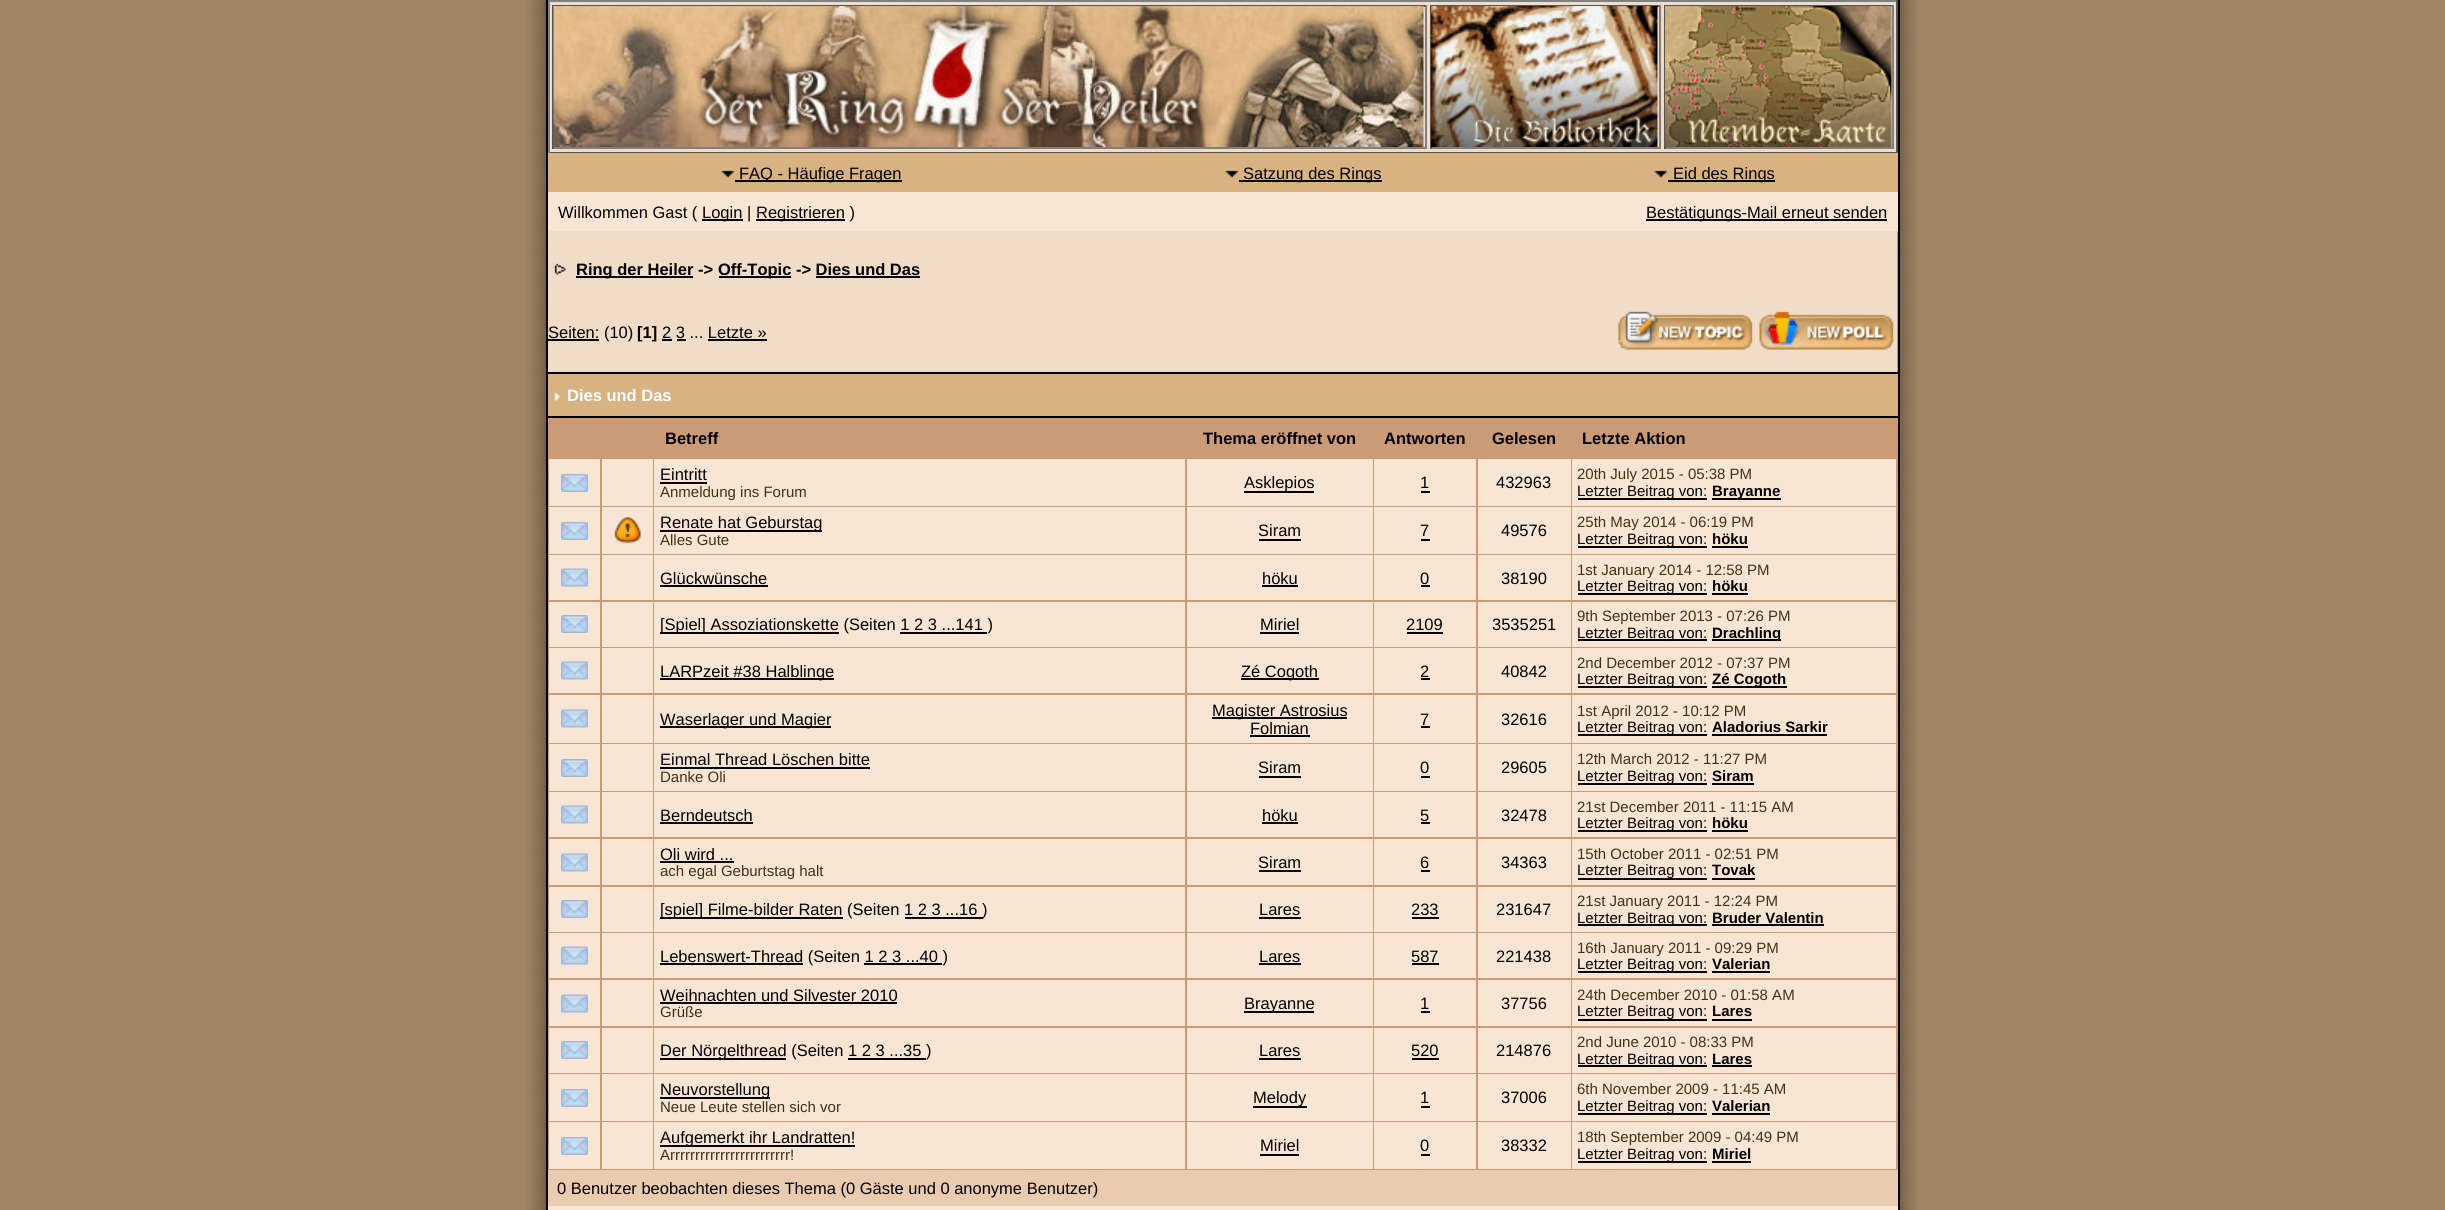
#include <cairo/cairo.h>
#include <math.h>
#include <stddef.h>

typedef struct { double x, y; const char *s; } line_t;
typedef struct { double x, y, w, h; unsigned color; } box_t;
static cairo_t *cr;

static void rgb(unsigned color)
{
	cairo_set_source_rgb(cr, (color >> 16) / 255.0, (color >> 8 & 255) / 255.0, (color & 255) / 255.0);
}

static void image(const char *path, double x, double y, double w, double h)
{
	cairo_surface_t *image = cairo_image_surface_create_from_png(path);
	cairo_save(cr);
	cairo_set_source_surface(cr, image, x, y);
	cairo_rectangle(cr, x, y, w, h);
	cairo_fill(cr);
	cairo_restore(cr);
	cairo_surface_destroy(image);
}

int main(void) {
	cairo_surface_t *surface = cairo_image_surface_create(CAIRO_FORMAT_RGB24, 2445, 1210);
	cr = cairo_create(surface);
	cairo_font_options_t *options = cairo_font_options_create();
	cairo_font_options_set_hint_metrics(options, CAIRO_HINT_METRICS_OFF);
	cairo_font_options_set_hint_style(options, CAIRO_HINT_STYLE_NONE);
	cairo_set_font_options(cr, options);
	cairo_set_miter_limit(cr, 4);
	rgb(0xa08464);
	cairo_paint(cr);
	image("img/1.png", 527, 0, 1391, 1210);
	{
		static const box_t items[] = {
			{1898, 0, 2, 1210, 0x000000},
			{546, 0, 2, 1210, 0x000000},
			{548, 0, 1350, 2, 0x808080},
			{1896, 0, 2, 153, 0x555555},
			{548, 152, 1350, 1, 0x555555},
			{548, 0, 2, 153, 0x808080},
			{552, 5, 875, 2, 0x555555},
			{1425, 5, 2, 144, 0x808080},
			{552, 147, 875, 2, 0x808080},
			{552, 5, 2, 144, 0x555555},
		};
		for (size_t i = 0; i < sizeof items / sizeof *items; i++) {
			rgb(items[i].color);
			cairo_rectangle(cr, items[i].x, items[i].y, items[i].w, items[i].h);
			cairo_fill(cr);
		}
	}
	image("img/2.png", 553, 6, 871, 141);
	{
		static const box_t items[] = {
			{1430, 5, 231, 2, 0x555555},
			{1659, 5, 2, 144, 0x808080},
			{1430, 147, 231, 2, 0x808080},
			{1430, 5, 2, 144, 0x555555},
		};
		for (size_t i = 0; i < sizeof items / sizeof *items; i++) {
			rgb(items[i].color);
			cairo_rectangle(cr, items[i].x, items[i].y, items[i].w, items[i].h);
			cairo_fill(cr);
		}
	}
	image("img/3.png", 1431, 6, 227, 141);
	{
		static const box_t items[] = {
			{1664, 5, 229, 2, 0x555555},
			{1892, 5, 2, 144, 0x808080},
			{1664, 147, 229, 2, 0x808080},
			{1664, 5, 2, 144, 0x555555},
		};
		for (size_t i = 0; i < sizeof items / sizeof *items; i++) {
			rgb(items[i].color);
			cairo_rectangle(cr, items[i].x, items[i].y, items[i].w, items[i].h);
			cairo_fill(cr);
		}
	}
	image("img/4.png", 1665, 6, 227, 141);
	rgb(0xd8b381);
	cairo_rectangle(cr, 548, 153, 1350, 39);
	cairo_fill(cr);
	image("img/5.png", 721, 170, 14, 8);
	rgb(0x000000);
	cairo_rectangle(cr, 735, 180, 167, 2);
	cairo_fill(cr);
	image("img/5.png", 1225, 170, 14, 8);
	cairo_rectangle(cr, 1239, 180, 143, 2);
	cairo_fill(cr);
	image("img/6.png", 1654, 170, 14, 8);
	{
		static const box_t items[] = {
			{1668, 180, 107, 2, 0x000000},
			{548, 192, 1350, 39, 0xf9e5d3},
			{702, 219, 41, 2, 0x000000},
			{756, 219, 89, 2, 0x000000},
			{1646, 219, 241, 2, 0x000000},
		};
		for (size_t i = 0; i < sizeof items / sizeof *items; i++) {
			rgb(items[i].color);
			cairo_rectangle(cr, items[i].x, items[i].y, items[i].w, items[i].h);
			cairo_fill(cr);
		}
	}
	image("img/7.png", 554, 263, 12, 12);
	{
		static const box_t items[] = {
			{576, 276, 117, 2, 0x000000},
			{719, 276, 72, 2, 0x000000},
			{816, 276, 104, 2, 0x000000},
			{548, 339, 51, 2, 0x000000},
			{662, 339, 10, 2, 0x000000},
			{677, 339, 9, 2, 0x000000},
			{708, 339, 59, 2, 0x000000},
		};
		for (size_t i = 0; i < sizeof items / sizeof *items; i++) {
			rgb(items[i].color);
			cairo_rectangle(cr, items[i].x, items[i].y, items[i].w, items[i].h);
			cairo_fill(cr);
		}
	}
	image("img/8.png", 1618, 311, 135, 39);
	image("img/9.png", 1759, 311, 135, 39);
	{
		static const box_t items[] = {
			{548, 418, 1350, 752, 0xca9b75},
			{548, 372, 1350, 2, 0x000000},
			{548, 374, 1350, 42, 0xd8b381},
			{548, 416, 1350, 2, 0x000000},
		};
		for (size_t i = 0; i < sizeof items / sizeof *items; i++) {
			rgb(items[i].color);
			cairo_rectangle(cr, items[i].x, items[i].y, items[i].w, items[i].h);
			cairo_fill(cr);
		}
	}
	image("img/10.png", 554, 392, 6, 9);
	rgb(0xf9e5d3);
	cairo_rectangle(cr, 549, 459, 51, 47);
	cairo_fill(cr);
	image("img/11.png", 561, 474, 27, 18);
	{
		static const box_t items[] = {
			{602, 459, 51, 47, 0xf9e5d3},
			{654, 459, 531, 47, 0xf9e5d3},
			{660, 482, 47, 2, 0x000000},
			{1187, 459, 186, 47, 0xf9e5d3},
			{1244, 491, 70, 2, 0x000000},
			{1374, 459, 102, 47, 0xf9e5d3},
			{1421, 491, 9, 2, 0x000000},
			{1478, 459, 93, 47, 0xf9e5d3},
			{1572, 459, 324, 47, 0xf9e5d3},
			{1578, 498, 129, 2, 0x000000},
			{1712, 498, 69, 2, 0x000000},
			{549, 507, 51, 47, 0xf9e5d3},
		};
		for (size_t i = 0; i < sizeof items / sizeof *items; i++) {
			rgb(items[i].color);
			cairo_rectangle(cr, items[i].x, items[i].y, items[i].w, items[i].h);
			cairo_fill(cr);
		}
	}
	image("img/11.png", 561, 522, 27, 18);
	cairo_rectangle(cr, 602, 507, 51, 47);
	cairo_fill(cr);
	image("img/12.png", 614, 517, 27, 27);
	{
		static const box_t items[] = {
			{654, 507, 531, 47, 0xf9e5d3},
			{660, 530, 162, 2, 0x000000},
			{1187, 507, 186, 47, 0xf9e5d3},
			{1259, 539, 42, 2, 0x000000},
			{1374, 507, 102, 47, 0xf9e5d3},
			{1421, 539, 9, 2, 0x000000},
			{1478, 507, 93, 47, 0xf9e5d3},
			{1572, 507, 324, 47, 0xf9e5d3},
			{1578, 546, 129, 2, 0x000000},
			{1712, 546, 36, 2, 0x000000},
			{549, 555, 51, 45, 0xf9e5d3},
		};
		for (size_t i = 0; i < sizeof items / sizeof *items; i++) {
			rgb(items[i].color);
			cairo_rectangle(cr, items[i].x, items[i].y, items[i].w, items[i].h);
			cairo_fill(cr);
		}
	}
	image("img/13.png", 561, 568, 27, 19);
	{
		static const box_t items[] = {
			{602, 555, 51, 45, 0xf9e5d3},
			{654, 555, 531, 45, 0xf9e5d3},
			{660, 585, 108, 2, 0x000000},
			{1187, 555, 186, 45, 0xf9e5d3},
			{1262, 585, 36, 2, 0x000000},
			{1374, 555, 102, 45, 0xf9e5d3},
			{1421, 585, 9, 2, 0x000000},
			{1478, 555, 93, 45, 0xf9e5d3},
			{1572, 555, 324, 45, 0xf9e5d3},
			{1578, 593, 129, 2, 0x000000},
			{1712, 593, 36, 2, 0x000000},
			{549, 602, 51, 45, 0xf9e5d3},
		};
		for (size_t i = 0; i < sizeof items / sizeof *items; i++) {
			rgb(items[i].color);
			cairo_rectangle(cr, items[i].x, items[i].y, items[i].w, items[i].h);
			cairo_fill(cr);
		}
	}
	image("img/11.png", 561, 615, 27, 18);
	{
		static const box_t items[] = {
			{602, 602, 51, 45, 0xf9e5d3},
			{654, 602, 531, 45, 0xf9e5d3},
			{660, 632, 179, 2, 0x000000},
			{900, 632, 87, 2, 0x000000},
			{1187, 602, 186, 45, 0xf9e5d3},
			{1260, 632, 39, 2, 0x000000},
			{1374, 602, 102, 45, 0xf9e5d3},
			{1407, 632, 36, 2, 0x000000},
			{1478, 602, 93, 45, 0xf9e5d3},
			{1572, 602, 324, 45, 0xf9e5d3},
			{1578, 639, 129, 2, 0x000000},
			{1712, 639, 69, 2, 0x000000},
			{549, 648, 51, 45, 0xf9e5d3},
		};
		for (size_t i = 0; i < sizeof items / sizeof *items; i++) {
			rgb(items[i].color);
			cairo_rectangle(cr, items[i].x, items[i].y, items[i].w, items[i].h);
			cairo_fill(cr);
		}
	}
	image("img/13.png", 561, 661, 27, 19);
	{
		static const box_t items[] = {
			{602, 648, 51, 45, 0xf9e5d3},
			{654, 648, 531, 45, 0xf9e5d3},
			{660, 678, 174, 2, 0x000000},
			{1187, 648, 186, 45, 0xf9e5d3},
			{1241, 678, 78, 2, 0x000000},
			{1374, 648, 102, 45, 0xf9e5d3},
			{1421, 678, 9, 2, 0x000000},
			{1478, 648, 93, 45, 0xf9e5d3},
			{1572, 648, 324, 45, 0xf9e5d3},
			{1578, 686, 129, 2, 0x000000},
			{1712, 686, 75, 2, 0x000000},
			{549, 695, 51, 48, 0xf9e5d3},
		};
		for (size_t i = 0; i < sizeof items / sizeof *items; i++) {
			rgb(items[i].color);
			cairo_rectangle(cr, items[i].x, items[i].y, items[i].w, items[i].h);
			cairo_fill(cr);
		}
	}
	image("img/13.png", 561, 709, 27, 19);
	{
		static const box_t items[] = {
			{602, 695, 51, 48, 0xf9e5d3},
			{654, 695, 531, 48, 0xf9e5d3},
			{660, 726, 171, 2, 0x000000},
			{1187, 695, 186, 48, 0xf9e5d3},
			{1212, 717, 135, 2, 0x000000},
			{1250, 735, 60, 2, 0x000000},
			{1374, 695, 102, 48, 0xf9e5d3},
			{1421, 726, 9, 2, 0x000000},
			{1478, 695, 93, 48, 0xf9e5d3},
			{1572, 695, 324, 48, 0xf9e5d3},
			{1578, 734, 129, 2, 0x000000},
			{1712, 734, 115, 2, 0x000000},
			{549, 744, 51, 47, 0xf9e5d3},
		};
		for (size_t i = 0; i < sizeof items / sizeof *items; i++) {
			rgb(items[i].color);
			cairo_rectangle(cr, items[i].x, items[i].y, items[i].w, items[i].h);
			cairo_fill(cr);
		}
	}
	image("img/11.png", 561, 759, 27, 18);
	{
		static const box_t items[] = {
			{602, 744, 51, 47, 0xf9e5d3},
			{654, 744, 531, 47, 0xf9e5d3},
			{660, 767, 210, 2, 0x000000},
			{1187, 744, 186, 47, 0xf9e5d3},
			{1259, 776, 42, 2, 0x000000},
			{1374, 744, 102, 47, 0xf9e5d3},
			{1421, 776, 9, 2, 0x000000},
			{1478, 744, 93, 47, 0xf9e5d3},
			{1572, 744, 324, 47, 0xf9e5d3},
			{1578, 783, 129, 2, 0x000000},
			{1712, 783, 42, 2, 0x000000},
			{549, 792, 51, 45, 0xf9e5d3},
		};
		for (size_t i = 0; i < sizeof items / sizeof *items; i++) {
			rgb(items[i].color);
			cairo_rectangle(cr, items[i].x, items[i].y, items[i].w, items[i].h);
			cairo_fill(cr);
		}
	}
	image("img/13.png", 561, 805, 27, 19);
	{
		static const box_t items[] = {
			{602, 792, 51, 45, 0xf9e5d3},
			{654, 792, 531, 45, 0xf9e5d3},
			{660, 822, 93, 2, 0x000000},
			{1187, 792, 186, 45, 0xf9e5d3},
			{1262, 822, 36, 2, 0x000000},
			{1374, 792, 102, 45, 0xf9e5d3},
			{1421, 822, 9, 2, 0x000000},
			{1478, 792, 93, 45, 0xf9e5d3},
			{1572, 792, 324, 45, 0xf9e5d3},
			{1578, 830, 129, 2, 0x000000},
			{1712, 830, 36, 2, 0x000000},
			{549, 839, 51, 46, 0xf9e5d3},
		};
		for (size_t i = 0; i < sizeof items / sizeof *items; i++) {
			rgb(items[i].color);
			cairo_rectangle(cr, items[i].x, items[i].y, items[i].w, items[i].h);
			cairo_fill(cr);
		}
	}
	image("img/13.png", 561, 853, 27, 19);
	{
		static const box_t items[] = {
			{602, 839, 51, 46, 0xf9e5d3},
			{654, 839, 531, 46, 0xf9e5d3},
			{660, 861, 74, 2, 0x000000},
			{1187, 839, 186, 46, 0xf9e5d3},
			{1259, 870, 42, 2, 0x000000},
			{1374, 839, 102, 46, 0xf9e5d3},
			{1421, 870, 9, 2, 0x000000},
			{1478, 839, 93, 46, 0xf9e5d3},
			{1572, 839, 324, 46, 0xf9e5d3},
			{1578, 878, 129, 2, 0x000000},
			{1712, 878, 43, 2, 0x000000},
			{549, 887, 51, 45, 0xf9e5d3},
		};
		for (size_t i = 0; i < sizeof items / sizeof *items; i++) {
			rgb(items[i].color);
			cairo_rectangle(cr, items[i].x, items[i].y, items[i].w, items[i].h);
			cairo_fill(cr);
		}
	}
	image("img/11.png", 561, 900, 27, 18);
	{
		static const box_t items[] = {
			{602, 887, 51, 45, 0xf9e5d3},
			{654, 887, 531, 45, 0xf9e5d3},
			{660, 917, 183, 2, 0x000000},
			{905, 917, 78, 2, 0x000000},
			{1187, 887, 186, 45, 0xf9e5d3},
			{1259, 917, 42, 2, 0x000000},
			{1374, 887, 102, 45, 0xf9e5d3},
			{1412, 917, 27, 2, 0x000000},
			{1478, 887, 93, 45, 0xf9e5d3},
			{1572, 887, 324, 45, 0xf9e5d3},
			{1578, 924, 129, 2, 0x000000},
			{1712, 924, 112, 2, 0x000000},
			{549, 933, 51, 45, 0xf9e5d3},
		};
		for (size_t i = 0; i < sizeof items / sizeof *items; i++) {
			rgb(items[i].color);
			cairo_rectangle(cr, items[i].x, items[i].y, items[i].w, items[i].h);
			cairo_fill(cr);
		}
	}
	image("img/13.png", 561, 946, 27, 19);
	{
		static const box_t items[] = {
			{602, 933, 51, 45, 0xf9e5d3},
			{654, 933, 531, 45, 0xf9e5d3},
			{660, 963, 143, 2, 0x000000},
			{864, 963, 78, 2, 0x000000},
			{1187, 933, 186, 45, 0xf9e5d3},
			{1259, 963, 42, 2, 0x000000},
			{1374, 933, 102, 45, 0xf9e5d3},
			{1412, 963, 27, 2, 0x000000},
			{1478, 933, 93, 45, 0xf9e5d3},
			{1572, 933, 324, 45, 0xf9e5d3},
			{1578, 971, 129, 2, 0x000000},
			{1712, 971, 58, 2, 0x000000},
			{549, 980, 51, 46, 0xf9e5d3},
		};
		for (size_t i = 0; i < sizeof items / sizeof *items; i++) {
			rgb(items[i].color);
			cairo_rectangle(cr, items[i].x, items[i].y, items[i].w, items[i].h);
			cairo_fill(cr);
		}
	}
	image("img/13.png", 561, 994, 27, 19);
	{
		static const box_t items[] = {
			{602, 980, 51, 46, 0xf9e5d3},
			{654, 980, 531, 46, 0xf9e5d3},
			{660, 1002, 237, 2, 0x000000},
			{1187, 980, 186, 46, 0xf9e5d3},
			{1244, 1011, 70, 2, 0x000000},
			{1374, 980, 102, 46, 0xf9e5d3},
			{1421, 1011, 9, 2, 0x000000},
			{1478, 980, 93, 46, 0xf9e5d3},
			{1572, 980, 324, 46, 0xf9e5d3},
			{1578, 1019, 129, 2, 0x000000},
			{1712, 1019, 40, 2, 0x000000},
			{549, 1028, 51, 45, 0xf9e5d3},
		};
		for (size_t i = 0; i < sizeof items / sizeof *items; i++) {
			rgb(items[i].color);
			cairo_rectangle(cr, items[i].x, items[i].y, items[i].w, items[i].h);
			cairo_fill(cr);
		}
	}
	image("img/11.png", 561, 1041, 27, 18);
	{
		static const box_t items[] = {
			{602, 1028, 51, 45, 0xf9e5d3},
			{654, 1028, 531, 45, 0xf9e5d3},
			{660, 1058, 126, 2, 0x000000},
			{848, 1058, 78, 2, 0x000000},
			{1187, 1028, 186, 45, 0xf9e5d3},
			{1259, 1058, 42, 2, 0x000000},
			{1374, 1028, 102, 45, 0xf9e5d3},
			{1412, 1058, 27, 2, 0x000000},
			{1478, 1028, 93, 45, 0xf9e5d3},
			{1572, 1028, 324, 45, 0xf9e5d3},
			{1578, 1065, 129, 2, 0x000000},
			{1712, 1065, 40, 2, 0x000000},
			{549, 1074, 51, 47, 0xf9e5d3},
		};
		for (size_t i = 0; i < sizeof items / sizeof *items; i++) {
			rgb(items[i].color);
			cairo_rectangle(cr, items[i].x, items[i].y, items[i].w, items[i].h);
			cairo_fill(cr);
		}
	}
	image("img/11.png", 561, 1089, 27, 18);
	{
		static const box_t items[] = {
			{602, 1074, 51, 47, 0xf9e5d3},
			{654, 1074, 531, 47, 0xf9e5d3},
			{660, 1097, 110, 2, 0x000000},
			{1187, 1074, 186, 47, 0xf9e5d3},
			{1253, 1106, 54, 2, 0x000000},
			{1374, 1074, 102, 47, 0xf9e5d3},
			{1421, 1106, 9, 2, 0x000000},
			{1478, 1074, 93, 47, 0xf9e5d3},
			{1572, 1074, 324, 47, 0xf9e5d3},
			{1578, 1113, 129, 2, 0x000000},
			{1712, 1113, 58, 2, 0x000000},
			{549, 1122, 51, 47, 0xf9e5d3},
		};
		for (size_t i = 0; i < sizeof items / sizeof *items; i++) {
			rgb(items[i].color);
			cairo_rectangle(cr, items[i].x, items[i].y, items[i].w, items[i].h);
			cairo_fill(cr);
		}
	}
	image("img/11.png", 561, 1137, 27, 18);
	{
		static const box_t items[] = {
			{602, 1122, 51, 47, 0xf9e5d3},
			{654, 1122, 531, 47, 0xf9e5d3},
			{660, 1145, 195, 2, 0x000000},
			{1187, 1122, 186, 47, 0xf9e5d3},
			{1260, 1154, 39, 2, 0x000000},
			{1374, 1122, 102, 47, 0xf9e5d3},
			{1421, 1154, 9, 2, 0x000000},
			{1478, 1122, 93, 47, 0xf9e5d3},
			{1572, 1122, 324, 47, 0xf9e5d3},
			{1578, 1161, 129, 2, 0x000000},
			{1712, 1161, 39, 2, 0x000000},
			{548, 1170, 1350, 36, 0xebcbaf},
			{548, 1206, 1350, 4, 0xf9e5d3},
		};
		for (size_t i = 0; i < sizeof items / sizeof *items; i++) {
			rgb(items[i].color);
			cairo_rectangle(cr, items[i].x, items[i].y, items[i].w, items[i].h);
			cairo_fill(cr);
		}
	}
	cairo_select_font_face(cr, "Liberation Sans", CAIRO_FONT_SLANT_NORMAL, CAIRO_FONT_WEIGHT_NORMAL);
	cairo_set_font_size(cr, 16.5);
	rgb(0x000000);
	{
		static const line_t items[] = {
			{739, 179, "FAQ - Häufige Fragen"},
			{1243, 179, "Satzung des Rings"},
			{1673, 179, "Eid des Rings"},
			{558, 218, "Willkommen Gast ("},
			{702, 218, "Login |"},
			{756, 218, "Registrieren )"},
			{1646, 218, "Bestätigungs-Mail erneut senden"},
		};
		for (size_t i = 0; i < sizeof items / sizeof *items; i++) {
			cairo_move_to(cr, items[i].x, items[i].y);
			cairo_show_text(cr, items[i].s);
		}
	}
	cairo_select_font_face(cr, "Liberation Sans", CAIRO_FONT_SLANT_NORMAL, CAIRO_FONT_WEIGHT_BOLD);
	cairo_move_to(cr, 576, 275);
	cairo_show_text(cr, "Ring der Heiler ->");
	cairo_move_to(cr, 718, 275);
	cairo_show_text(cr, "Off-Topic -> Dies und Das");
	cairo_select_font_face(cr, "Liberation Sans", CAIRO_FONT_SLANT_NORMAL, CAIRO_FONT_WEIGHT_NORMAL);
	cairo_move_to(cr, 548, 338);
	cairo_show_text(cr, "Seiten: (10)");
	cairo_select_font_face(cr, "Liberation Sans", CAIRO_FONT_SLANT_NORMAL, CAIRO_FONT_WEIGHT_BOLD);
	cairo_move_to(cr, 637, 338);
	cairo_show_text(cr, "[1]");
	cairo_select_font_face(cr, "Liberation Sans", CAIRO_FONT_SLANT_NORMAL, CAIRO_FONT_WEIGHT_NORMAL);
	cairo_move_to(cr, 662, 338);
	cairo_show_text(cr, "2 3 ... Letzte »");
	cairo_select_font_face(cr, "Liberation Sans", CAIRO_FONT_SLANT_NORMAL, CAIRO_FONT_WEIGHT_BOLD);
	rgb(0xffffff);
	cairo_move_to(cr, 567, 401);
	cairo_show_text(cr, "Dies und Das");
	rgb(0x00000f);
	{
		static const line_t items[] = {
			{665, 444, "Betreff"},
			{1203, 444, "Thema eröffnet von"},
			{1384, 444, "Antworten"},
			{1492, 444, "Gelesen"},
			{1582, 444, "Letzte Aktion"},
		};
		for (size_t i = 0; i < sizeof items / sizeof *items; i++) {
			cairo_move_to(cr, items[i].x, items[i].y);
			cairo_show_text(cr, items[i].s);
		}
	}
	cairo_select_font_face(cr, "Liberation Sans", CAIRO_FONT_SLANT_NORMAL, CAIRO_FONT_WEIGHT_NORMAL);
	rgb(0x000000);
	cairo_move_to(cr, 660, 480);
	cairo_show_text(cr, "Eintritt");
	cairo_set_font_size(cr, 15);
	rgb(0x413216);
	cairo_move_to(cr, 660, 497);
	cairo_show_text(cr, "Anmeldung ins Forum");
	cairo_set_font_size(cr, 16.5);
	rgb(0x000000);
	{
		static const line_t items[] = {
			{1244, 488, "Asklepios"},
			{1420, 488, "1"},
			{1496, 488, "432963"},
		};
		for (size_t i = 0; i < sizeof items / sizeof *items; i++) {
			cairo_move_to(cr, items[i].x, items[i].y);
			cairo_show_text(cr, items[i].s);
		}
	}
	cairo_set_font_size(cr, 15);
	rgb(0x413216);
	cairo_move_to(cr, 1577, 479);
	cairo_show_text(cr, "20th July 2015 - 05:38 PM");
	rgb(0x000000);
	cairo_move_to(cr, 1577, 496);
	cairo_show_text(cr, "Letzter Beitrag von:");
	cairo_select_font_face(cr, "Liberation Sans", CAIRO_FONT_SLANT_NORMAL, CAIRO_FONT_WEIGHT_BOLD);
	cairo_move_to(cr, 1712, 496);
	cairo_show_text(cr, "Brayanne");
	cairo_select_font_face(cr, "Liberation Sans", CAIRO_FONT_SLANT_NORMAL, CAIRO_FONT_WEIGHT_NORMAL);
	cairo_set_font_size(cr, 16.5);
	cairo_move_to(cr, 660, 528);
	cairo_show_text(cr, "Renate hat Geburstag");
	cairo_set_font_size(cr, 15);
	rgb(0x413216);
	cairo_move_to(cr, 660, 545);
	cairo_show_text(cr, "Alles Gute");
	cairo_set_font_size(cr, 16.5);
	rgb(0x000000);
	{
		static const line_t items[] = {
			{1258, 536, "Siram"},
			{1420, 536, "7"},
			{1501, 536, "49576"},
		};
		for (size_t i = 0; i < sizeof items / sizeof *items; i++) {
			cairo_move_to(cr, items[i].x, items[i].y);
			cairo_show_text(cr, items[i].s);
		}
	}
	cairo_set_font_size(cr, 15);
	rgb(0x413216);
	cairo_move_to(cr, 1577, 527);
	cairo_show_text(cr, "25th May 2014 - 06:19 PM");
	rgb(0x000000);
	cairo_move_to(cr, 1577, 544);
	cairo_show_text(cr, "Letzter Beitrag von:");
	cairo_select_font_face(cr, "Liberation Sans", CAIRO_FONT_SLANT_NORMAL, CAIRO_FONT_WEIGHT_BOLD);
	cairo_move_to(cr, 1712, 544);
	cairo_show_text(cr, "höku");
	cairo_select_font_face(cr, "Liberation Sans", CAIRO_FONT_SLANT_NORMAL, CAIRO_FONT_WEIGHT_NORMAL);
	cairo_set_font_size(cr, 16.5);
	{
		static const line_t items[] = {
			{660, 584, "Glückwünsche"},
			{1262, 584, "höku"},
			{1420, 584, "0"},
			{1501, 584, "38190"},
		};
		for (size_t i = 0; i < sizeof items / sizeof *items; i++) {
			cairo_move_to(cr, items[i].x, items[i].y);
			cairo_show_text(cr, items[i].s);
		}
	}
	cairo_set_font_size(cr, 15);
	rgb(0x413216);
	cairo_move_to(cr, 1577, 575);
	cairo_show_text(cr, "1st January 2014 - 12:58 PM");
	rgb(0x000000);
	cairo_move_to(cr, 1577, 591);
	cairo_show_text(cr, "Letzter Beitrag von:");
	cairo_select_font_face(cr, "Liberation Sans", CAIRO_FONT_SLANT_NORMAL, CAIRO_FONT_WEIGHT_BOLD);
	cairo_move_to(cr, 1712, 591);
	cairo_show_text(cr, "höku");
	cairo_select_font_face(cr, "Liberation Sans", CAIRO_FONT_SLANT_NORMAL, CAIRO_FONT_WEIGHT_NORMAL);
	cairo_set_font_size(cr, 16.5);
	{
		static const line_t items[] = {
			{660, 630, "[Spiel] Assoziationskette (Seiten 1 2 3 ...141 )"},
			{1260, 630, "Miriel"},
			{1406, 630, "2109"},
			{1492, 630, "3535251"},
		};
		for (size_t i = 0; i < sizeof items / sizeof *items; i++) {
			cairo_move_to(cr, items[i].x, items[i].y);
			cairo_show_text(cr, items[i].s);
		}
	}
	cairo_set_font_size(cr, 15);
	rgb(0x413216);
	cairo_move_to(cr, 1577, 621);
	cairo_show_text(cr, "9th September 2013 - 07:26 PM");
	rgb(0x000000);
	cairo_move_to(cr, 1577, 638);
	cairo_show_text(cr, "Letzter Beitrag von:");
	cairo_select_font_face(cr, "Liberation Sans", CAIRO_FONT_SLANT_NORMAL, CAIRO_FONT_WEIGHT_BOLD);
	cairo_move_to(cr, 1712, 638);
	cairo_show_text(cr, "Drachling");
	cairo_select_font_face(cr, "Liberation Sans", CAIRO_FONT_SLANT_NORMAL, CAIRO_FONT_WEIGHT_NORMAL);
	cairo_set_font_size(cr, 16.5);
	{
		static const line_t items[] = {
			{660, 677, "LARPzeit #38 Halblinge"},
			{1241, 677, "Zé Cogoth"},
			{1420, 677, "2"},
			{1501, 677, "40842"},
		};
		for (size_t i = 0; i < sizeof items / sizeof *items; i++) {
			cairo_move_to(cr, items[i].x, items[i].y);
			cairo_show_text(cr, items[i].s);
		}
	}
	cairo_set_font_size(cr, 15);
	rgb(0x413216);
	cairo_move_to(cr, 1577, 668);
	cairo_show_text(cr, "2nd December 2012 - 07:37 PM");
	rgb(0x000000);
	cairo_move_to(cr, 1577, 684);
	cairo_show_text(cr, "Letzter Beitrag von:");
	cairo_select_font_face(cr, "Liberation Sans", CAIRO_FONT_SLANT_NORMAL, CAIRO_FONT_WEIGHT_BOLD);
	cairo_move_to(cr, 1712, 684);
	cairo_show_text(cr, "Zé Cogoth");
	cairo_select_font_face(cr, "Liberation Sans", CAIRO_FONT_SLANT_NORMAL, CAIRO_FONT_WEIGHT_NORMAL);
	cairo_set_font_size(cr, 16.5);
	{
		static const line_t items[] = {
			{660, 725, "Waserlager und Magier"},
			{1212, 716, "Magister Astrosius"},
			{1250, 734, "Folmian"},
			{1420, 725, "7"},
			{1501, 725, "32616"},
		};
		for (size_t i = 0; i < sizeof items / sizeof *items; i++) {
			cairo_move_to(cr, items[i].x, items[i].y);
			cairo_show_text(cr, items[i].s);
		}
	}
	cairo_set_font_size(cr, 15);
	rgb(0x413216);
	cairo_move_to(cr, 1577, 716);
	cairo_show_text(cr, "1st April 2012 - 10:12 PM");
	rgb(0x000000);
	cairo_move_to(cr, 1577, 732);
	cairo_show_text(cr, "Letzter Beitrag von:");
	cairo_select_font_face(cr, "Liberation Sans", CAIRO_FONT_SLANT_NORMAL, CAIRO_FONT_WEIGHT_BOLD);
	cairo_move_to(cr, 1712, 732);
	cairo_show_text(cr, "Aladorius Sarkir");
	cairo_select_font_face(cr, "Liberation Sans", CAIRO_FONT_SLANT_NORMAL, CAIRO_FONT_WEIGHT_NORMAL);
	cairo_set_font_size(cr, 16.5);
	cairo_move_to(cr, 660, 765);
	cairo_show_text(cr, "Einmal Thread Löschen bitte");
	cairo_set_font_size(cr, 15);
	rgb(0x413216);
	cairo_move_to(cr, 660, 782);
	cairo_show_text(cr, "Danke Oli");
	cairo_set_font_size(cr, 16.5);
	rgb(0x000000);
	{
		static const line_t items[] = {
			{1258, 773, "Siram"},
			{1420, 773, "0"},
			{1501, 773, "29605"},
		};
		for (size_t i = 0; i < sizeof items / sizeof *items; i++) {
			cairo_move_to(cr, items[i].x, items[i].y);
			cairo_show_text(cr, items[i].s);
		}
	}
	cairo_set_font_size(cr, 15);
	rgb(0x413216);
	cairo_move_to(cr, 1577, 764);
	cairo_show_text(cr, "12th March 2012 - 11:27 PM");
	rgb(0x000000);
	cairo_move_to(cr, 1577, 781);
	cairo_show_text(cr, "Letzter Beitrag von:");
	cairo_select_font_face(cr, "Liberation Sans", CAIRO_FONT_SLANT_NORMAL, CAIRO_FONT_WEIGHT_BOLD);
	cairo_move_to(cr, 1712, 781);
	cairo_show_text(cr, "Siram");
	cairo_select_font_face(cr, "Liberation Sans", CAIRO_FONT_SLANT_NORMAL, CAIRO_FONT_WEIGHT_NORMAL);
	cairo_set_font_size(cr, 16.5);
	{
		static const line_t items[] = {
			{660, 821, "Berndeutsch"},
			{1262, 821, "höku"},
			{1420, 821, "5"},
			{1501, 821, "32478"},
		};
		for (size_t i = 0; i < sizeof items / sizeof *items; i++) {
			cairo_move_to(cr, items[i].x, items[i].y);
			cairo_show_text(cr, items[i].s);
		}
	}
	cairo_set_font_size(cr, 15);
	rgb(0x413216);
	cairo_move_to(cr, 1577, 812);
	cairo_show_text(cr, "21st December 2011 - 11:15 AM");
	rgb(0x000000);
	cairo_move_to(cr, 1577, 828);
	cairo_show_text(cr, "Letzter Beitrag von:");
	cairo_select_font_face(cr, "Liberation Sans", CAIRO_FONT_SLANT_NORMAL, CAIRO_FONT_WEIGHT_BOLD);
	cairo_move_to(cr, 1712, 828);
	cairo_show_text(cr, "höku");
	cairo_select_font_face(cr, "Liberation Sans", CAIRO_FONT_SLANT_NORMAL, CAIRO_FONT_WEIGHT_NORMAL);
	cairo_set_font_size(cr, 16.5);
	cairo_move_to(cr, 660, 860);
	cairo_show_text(cr, "Oli wird ...");
	cairo_set_font_size(cr, 15);
	rgb(0x413216);
	cairo_move_to(cr, 660, 876);
	cairo_show_text(cr, "ach egal Geburtstag halt");
	cairo_set_font_size(cr, 16.5);
	rgb(0x000000);
	{
		static const line_t items[] = {
			{1258, 868, "Siram"},
			{1420, 868, "6"},
			{1501, 868, "34363"},
		};
		for (size_t i = 0; i < sizeof items / sizeof *items; i++) {
			cairo_move_to(cr, items[i].x, items[i].y);
			cairo_show_text(cr, items[i].s);
		}
	}
	cairo_set_font_size(cr, 15);
	rgb(0x413216);
	cairo_move_to(cr, 1577, 859);
	cairo_show_text(cr, "15th October 2011 - 02:51 PM");
	rgb(0x000000);
	cairo_move_to(cr, 1577, 875);
	cairo_show_text(cr, "Letzter Beitrag von:");
	cairo_select_font_face(cr, "Liberation Sans", CAIRO_FONT_SLANT_NORMAL, CAIRO_FONT_WEIGHT_BOLD);
	cairo_move_to(cr, 1712, 875);
	cairo_show_text(cr, "Tovak");
	cairo_select_font_face(cr, "Liberation Sans", CAIRO_FONT_SLANT_NORMAL, CAIRO_FONT_WEIGHT_NORMAL);
	cairo_set_font_size(cr, 16.5);
	{
		static const line_t items[] = {
			{660, 915, "[spiel] Filme-bilder Raten (Seiten 1 2 3 ...16"},
			{982, 915, ")"},
			{1259, 915, "Lares"},
			{1411, 915, "233"},
			{1496, 915, "231647"},
		};
		for (size_t i = 0; i < sizeof items / sizeof *items; i++) {
			cairo_move_to(cr, items[i].x, items[i].y);
			cairo_show_text(cr, items[i].s);
		}
	}
	cairo_set_font_size(cr, 15);
	rgb(0x413216);
	cairo_move_to(cr, 1577, 906);
	cairo_show_text(cr, "21st January 2011 - 12:24 PM");
	rgb(0x000000);
	cairo_move_to(cr, 1577, 923);
	cairo_show_text(cr, "Letzter Beitrag von:");
	cairo_select_font_face(cr, "Liberation Sans", CAIRO_FONT_SLANT_NORMAL, CAIRO_FONT_WEIGHT_BOLD);
	cairo_move_to(cr, 1712, 923);
	cairo_show_text(cr, "Bruder Valentin");
	cairo_select_font_face(cr, "Liberation Sans", CAIRO_FONT_SLANT_NORMAL, CAIRO_FONT_WEIGHT_NORMAL);
	cairo_set_font_size(cr, 16.5);
	{
		static const line_t items[] = {
			{660, 962, "Lebenswert-Thread (Seiten 1 2 3 ...40 )"},
			{1259, 962, "Lares"},
			{1411, 962, "587"},
			{1496, 962, "221438"},
		};
		for (size_t i = 0; i < sizeof items / sizeof *items; i++) {
			cairo_move_to(cr, items[i].x, items[i].y);
			cairo_show_text(cr, items[i].s);
		}
	}
	cairo_set_font_size(cr, 15);
	rgb(0x413216);
	cairo_move_to(cr, 1577, 953);
	cairo_show_text(cr, "16th January 2011 - 09:29 PM");
	rgb(0x000000);
	cairo_move_to(cr, 1577, 969);
	cairo_show_text(cr, "Letzter Beitrag von:");
	cairo_select_font_face(cr, "Liberation Sans", CAIRO_FONT_SLANT_NORMAL, CAIRO_FONT_WEIGHT_BOLD);
	cairo_move_to(cr, 1712, 969);
	cairo_show_text(cr, "Valerian");
	cairo_select_font_face(cr, "Liberation Sans", CAIRO_FONT_SLANT_NORMAL, CAIRO_FONT_WEIGHT_NORMAL);
	cairo_set_font_size(cr, 16.5);
	cairo_move_to(cr, 660, 1001);
	cairo_show_text(cr, "Weihnachten und Silvester 2010");
	cairo_set_font_size(cr, 15);
	rgb(0x413216);
	cairo_move_to(cr, 660, 1017);
	cairo_show_text(cr, "Grüße");
	cairo_set_font_size(cr, 16.5);
	rgb(0x000000);
	{
		static const line_t items[] = {
			{1244, 1009, "Brayanne"},
			{1420, 1009, "1"},
			{1501, 1009, "37756"},
		};
		for (size_t i = 0; i < sizeof items / sizeof *items; i++) {
			cairo_move_to(cr, items[i].x, items[i].y);
			cairo_show_text(cr, items[i].s);
		}
	}
	cairo_set_font_size(cr, 15);
	rgb(0x413216);
	cairo_move_to(cr, 1577, 1000);
	cairo_show_text(cr, "24th December 2010 - 01:58 AM");
	rgb(0x000000);
	cairo_move_to(cr, 1577, 1016);
	cairo_show_text(cr, "Letzter Beitrag von:");
	cairo_select_font_face(cr, "Liberation Sans", CAIRO_FONT_SLANT_NORMAL, CAIRO_FONT_WEIGHT_BOLD);
	cairo_move_to(cr, 1712, 1016);
	cairo_show_text(cr, "Lares");
	cairo_select_font_face(cr, "Liberation Sans", CAIRO_FONT_SLANT_NORMAL, CAIRO_FONT_WEIGHT_NORMAL);
	cairo_set_font_size(cr, 16.5);
	{
		static const line_t items[] = {
			{660, 1056, "Der Nörgelthread (Seiten 1 2 3 ...35 )"},
			{1259, 1056, "Lares"},
			{1411, 1056, "520"},
			{1496, 1056, "214876"},
		};
		for (size_t i = 0; i < sizeof items / sizeof *items; i++) {
			cairo_move_to(cr, items[i].x, items[i].y);
			cairo_show_text(cr, items[i].s);
		}
	}
	cairo_set_font_size(cr, 15);
	rgb(0x413216);
	cairo_move_to(cr, 1577, 1047);
	cairo_show_text(cr, "2nd June 2010 - 08:33 PM");
	rgb(0x000000);
	cairo_move_to(cr, 1577, 1064);
	cairo_show_text(cr, "Letzter Beitrag von:");
	cairo_select_font_face(cr, "Liberation Sans", CAIRO_FONT_SLANT_NORMAL, CAIRO_FONT_WEIGHT_BOLD);
	cairo_move_to(cr, 1712, 1064);
	cairo_show_text(cr, "Lares");
	cairo_select_font_face(cr, "Liberation Sans", CAIRO_FONT_SLANT_NORMAL, CAIRO_FONT_WEIGHT_NORMAL);
	cairo_set_font_size(cr, 16.5);
	cairo_move_to(cr, 660, 1095);
	cairo_show_text(cr, "Neuvorstellung");
	cairo_set_font_size(cr, 15);
	rgb(0x413216);
	cairo_move_to(cr, 660, 1112);
	cairo_show_text(cr, "Neue Leute stellen sich vor");
	cairo_set_font_size(cr, 16.5);
	rgb(0x000000);
	{
		static const line_t items[] = {
			{1253, 1103, "Melody"},
			{1420, 1103, "1"},
			{1501, 1103, "37006"},
		};
		for (size_t i = 0; i < sizeof items / sizeof *items; i++) {
			cairo_move_to(cr, items[i].x, items[i].y);
			cairo_show_text(cr, items[i].s);
		}
	}
	cairo_set_font_size(cr, 15);
	rgb(0x413216);
	cairo_move_to(cr, 1577, 1094);
	cairo_show_text(cr, "6th November 2009 - 11:45 AM");
	rgb(0x000000);
	cairo_move_to(cr, 1577, 1111);
	cairo_show_text(cr, "Letzter Beitrag von:");
	cairo_select_font_face(cr, "Liberation Sans", CAIRO_FONT_SLANT_NORMAL, CAIRO_FONT_WEIGHT_BOLD);
	cairo_move_to(cr, 1712, 1111);
	cairo_show_text(cr, "Valerian");
	cairo_select_font_face(cr, "Liberation Sans", CAIRO_FONT_SLANT_NORMAL, CAIRO_FONT_WEIGHT_NORMAL);
	cairo_set_font_size(cr, 16.5);
	cairo_move_to(cr, 660, 1143);
	cairo_show_text(cr, "Aufgemerkt ihr Landratten!");
	cairo_set_font_size(cr, 15);
	rgb(0x413216);
	cairo_move_to(cr, 660, 1160);
	cairo_show_text(cr, "Arrrrrrrrrrrrrrrrrrrrrrrr!");
	cairo_set_font_size(cr, 16.5);
	rgb(0x000000);
	{
		static const line_t items[] = {
			{1260, 1151, "Miriel"},
			{1420, 1151, "0"},
			{1501, 1151, "38332"},
		};
		for (size_t i = 0; i < sizeof items / sizeof *items; i++) {
			cairo_move_to(cr, items[i].x, items[i].y);
			cairo_show_text(cr, items[i].s);
		}
	}
	cairo_set_font_size(cr, 15);
	rgb(0x413216);
	cairo_move_to(cr, 1577, 1142);
	cairo_show_text(cr, "18th September 2009 - 04:49 PM");
	rgb(0x000000);
	cairo_move_to(cr, 1577, 1159);
	cairo_show_text(cr, "Letzter Beitrag von:");
	cairo_select_font_face(cr, "Liberation Sans", CAIRO_FONT_SLANT_NORMAL, CAIRO_FONT_WEIGHT_BOLD);
	cairo_move_to(cr, 1712, 1159);
	cairo_show_text(cr, "Miriel");
	cairo_select_font_face(cr, "Liberation Sans", CAIRO_FONT_SLANT_NORMAL, CAIRO_FONT_WEIGHT_NORMAL);
	cairo_set_font_size(cr, 16.5);
	cairo_move_to(cr, 557, 1194);
	cairo_show_text(cr, "0 Benutzer beobachten dieses Thema (0 Gäste und 0 anonyme Benutzer)");
	cairo_surface_write_to_png(surface, "page.png");
	cairo_font_options_destroy(options);
	cairo_destroy(cr);
	cairo_surface_destroy(surface);
	return 0;
}
